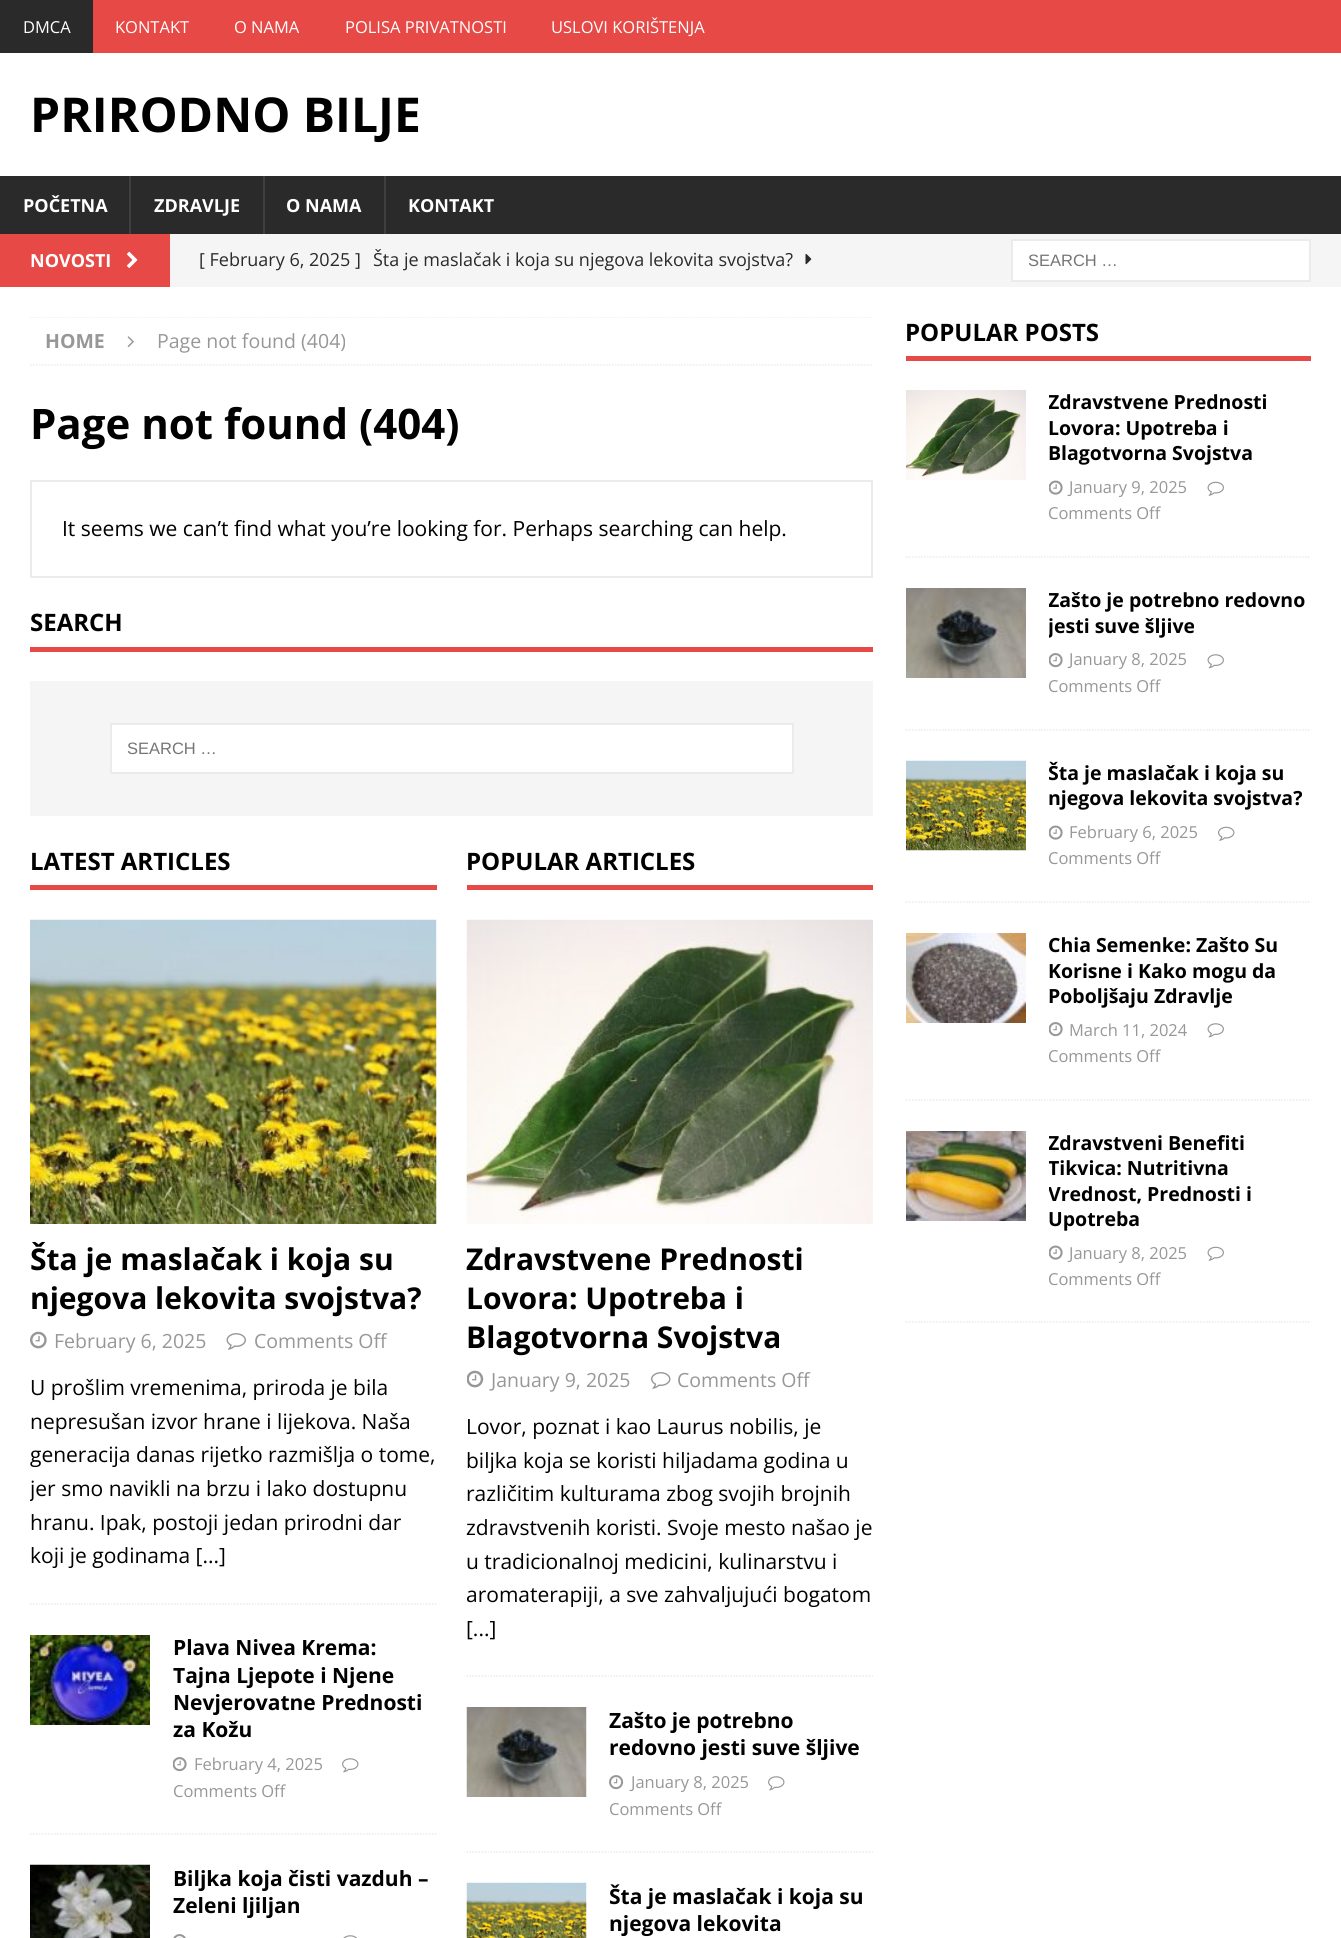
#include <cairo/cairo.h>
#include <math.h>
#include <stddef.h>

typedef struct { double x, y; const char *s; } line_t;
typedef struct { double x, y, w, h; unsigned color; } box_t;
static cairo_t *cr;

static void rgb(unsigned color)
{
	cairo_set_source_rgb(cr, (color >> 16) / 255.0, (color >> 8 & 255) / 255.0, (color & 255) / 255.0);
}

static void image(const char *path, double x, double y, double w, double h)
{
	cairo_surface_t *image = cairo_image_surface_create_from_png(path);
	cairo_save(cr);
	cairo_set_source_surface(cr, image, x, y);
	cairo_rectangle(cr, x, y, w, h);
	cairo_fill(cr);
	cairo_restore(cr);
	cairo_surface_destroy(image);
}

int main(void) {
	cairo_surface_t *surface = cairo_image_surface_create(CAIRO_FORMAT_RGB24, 1341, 1938);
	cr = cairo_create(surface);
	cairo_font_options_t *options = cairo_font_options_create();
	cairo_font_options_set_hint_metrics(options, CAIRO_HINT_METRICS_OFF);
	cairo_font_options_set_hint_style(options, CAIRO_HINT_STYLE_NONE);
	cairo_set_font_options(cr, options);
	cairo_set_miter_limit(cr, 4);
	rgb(0xe64946);
	cairo_paint(cr);
	{
		static const box_t items[] = {
			{0, 0, 93, 53, 0x2a2a2a},
			{0, 53, 1341, 123, 0xffffff},
			{0, 176, 1341, 58, 0x2a2a2a},
			{129, 176, 2, 58, 0x3f3f3f},
			{263, 176, 2, 58, 0x3f3f3f},
			{384, 176, 2, 58, 0x3f3f3f},
			{170, 234, 1171, 53, 0xf5f5f5},
		};
		for (size_t i = 0; i < sizeof items / sizeof *items; i++) {
			rgb(items[i].color);
			cairo_rectangle(cr, items[i].x, items[i].y, items[i].w, items[i].h);
			cairo_fill(cr);
		}
	}
	image("img/1.png", 126, 251, 12, 17);
	image("img/2.png", 805, 254, 7, 11);
	rgb(0xffffff);
	cairo_rectangle(cr, 1012, 240, 298, 41);
	cairo_fill_preserve(cr);
	rgb(0xebebeb);
	cairo_stroke(cr);
	rgb(0xffffff);
	cairo_rectangle(cr, 0, 287, 1341, 1651);
	cairo_fill(cr);
	cairo_save(cr);
	cairo_rectangle(cr, 30, 317, 843, 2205);
	cairo_clip(cr);
	cairo_new_path(cr);
	cairo_move_to(cr, 30, 317);
	cairo_line_to(cr, 873, 317);
	rgb(0xebebeb);
	cairo_set_line_width(cr, 1.5);
	cairo_set_dash(cr, (double[]){1.5, 1.5}, 2, 0);
	cairo_stroke(cr);
	cairo_restore(cr);
	cairo_new_path(cr);
	cairo_move_to(cr, 30, 365);
	cairo_line_to(cr, 873, 365);
	rgb(0xebebeb);
	cairo_set_line_width(cr, 1.5);
	cairo_set_dash(cr, (double[]){1.5, 1.5}, 2, 0);
	cairo_stroke(cr);
	image("img/3.png", 127, 336, 7, 12);
	cairo_rectangle(cr, 31, 481, 841, 96);
	cairo_set_line_width(cr, 2);
	cairo_set_dash(cr, NULL, 0, 0);
	cairo_stroke(cr);
	rgb(0xe64946);
	cairo_rectangle(cr, 30, 647, 843, 5);
	cairo_fill(cr);
	rgb(0xf5f5f5);
	cairo_rectangle(cr, 30, 681, 843, 135);
	cairo_fill(cr);
	rgb(0xffffff);
	cairo_rectangle(cr, 111, 724, 682, 49);
	cairo_fill_preserve(cr);
	rgb(0xebebeb);
	cairo_stroke(cr);
	rgb(0xe64946);
	cairo_rectangle(cr, 30, 885, 407, 5);
	cairo_fill(cr);
	cairo_new_path(cr);
	cairo_move_to(cr, 30, 1604);
	cairo_line_to(cr, 436.5, 1604);
	rgb(0xebebeb);
	cairo_set_line_width(cr, 1.5);
	cairo_set_dash(cr, (double[]){1.5, 1.5}, 2, 0);
	cairo_stroke(cr);
	image("img/4.png", 30, 919, 407, 305);
	image("img/5.png", 30, 1331, 17, 18);
	image("img/6.png", 226, 1333, 20, 17);
	cairo_new_path(cr);
	cairo_move_to(cr, 30, 1834);
	cairo_line_to(cr, 436.5, 1834);
	cairo_stroke(cr);
	image("img/7.png", 30, 1635, 120, 90);
	image("img/8.png", 173, 1757, 14, 15);
	image("img/9.png", 342, 1758, 17, 15);
	image("img/10.png", 30, 1864, 120, 74);
	image("img/11.png", 173, 1934, 13, 4);
	image("img/12.png", 343, 1935, 14, 3);
	rgb(0xe64946);
	cairo_rectangle(cr, 467, 885, 406, 5);
	cairo_fill(cr);
	cairo_new_path(cr);
	cairo_move_to(cr, 466.5, 1676);
	cairo_line_to(cr, 873, 1676);
	rgb(0xebebeb);
	cairo_stroke(cr);
	image("img/13.png", 466, 919, 407, 305);
	image("img/14.png", 467, 1370, 17, 18);
	image("img/15.png", 651, 1372, 20, 17);
	cairo_new_path(cr);
	cairo_move_to(cr, 466.5, 1852);
	cairo_line_to(cr, 873, 1852);
	cairo_stroke(cr);
	image("img/16.png", 466, 1707, 121, 90);
	image("img/17.png", 609, 1775, 15, 15);
	image("img/9.png", 768, 1776, 17, 15);
	image("img/18.png", 466, 1882, 121, 56);
	rgb(0xe64946);
	cairo_rectangle(cr, 906, 356, 405, 5);
	cairo_fill(cr);
	cairo_new_path(cr);
	cairo_move_to(cr, 906, 557);
	cairo_line_to(cr, 1311, 557);
	rgb(0xebebeb);
	cairo_stroke(cr);
	image("img/19.png", 906, 390, 120, 90);
	image("img/20.png", 1049, 480, 14, 15);
	image("img/21.png", 1207, 481, 17, 15);
	cairo_new_path(cr);
	cairo_move_to(cr, 906, 730);
	cairo_line_to(cr, 1311, 730);
	cairo_stroke(cr);
	image("img/22.png", 906, 588, 120, 90);
	image("img/8.png", 1049, 653, 14, 15);
	image("img/23.png", 1207, 654, 17, 15);
	cairo_new_path(cr);
	cairo_move_to(cr, 906, 902);
	cairo_line_to(cr, 1311, 902);
	cairo_stroke(cr);
	image("img/24.png", 906, 760, 120, 91);
	image("img/20.png", 1049, 825, 14, 15);
	image("img/25.png", 1218, 826, 17, 15);
	cairo_new_path(cr);
	cairo_move_to(cr, 906, 1100);
	cairo_line_to(cr, 1311, 1100);
	cairo_stroke(cr);
	image("img/26.png", 906, 933, 120, 90);
	image("img/8.png", 1049, 1022, 14, 15);
	image("img/23.png", 1207, 1023, 17, 15);
	cairo_new_path(cr);
	cairo_move_to(cr, 906, 1322);
	cairo_line_to(cr, 1311, 1322);
	cairo_stroke(cr);
	image("img/27.png", 906, 1131, 120, 90);
	image("img/20.png", 1049, 1245, 14, 15);
	image("img/21.png", 1207, 1246, 17, 15);
	cairo_select_font_face(cr, "Open Sans", CAIRO_FONT_SLANT_NORMAL, CAIRO_FONT_WEIGHT_NORMAL);
	cairo_set_font_size(cr, 16.5);
	rgb(0xffffff);
	{
		static const line_t items[] = {
			{23, 33, "DMCA"},
			{115, 33, "KONTAKT"},
			{234, 33, "O NAMA"},
			{345, 33, "POLISA PRIVATNOSTI"},
			{551, 33, "USLOVI KORIŠTENJA"},
		};
		for (size_t i = 0; i < sizeof items / sizeof *items; i++) {
			cairo_move_to(cr, items[i].x, items[i].y);
			cairo_show_text(cr, items[i].s);
		}
	}
	cairo_select_font_face(cr, "Open Sans", CAIRO_FONT_SLANT_NORMAL, CAIRO_FONT_WEIGHT_BOLD);
	cairo_set_font_size(cr, 48);
	rgb(0x000000);
	cairo_move_to(cr, 30, 132);
	cairo_show_text(cr, "PRIRODNO BILJE");
	cairo_set_font_size(cr, 18);
	rgb(0xffffff);
	{
		static const line_t items[] = {
			{23, 212, "POČETNA"},
			{154, 212, "ZDRAVLJE"},
			{286, 212, "O NAMA"},
			{408, 212, "KONTAKT"},
			{30, 267, "NOVOSTI"},
		};
		for (size_t i = 0; i < sizeof items / sizeof *items; i++) {
			cairo_move_to(cr, items[i].x, items[i].y);
			cairo_show_text(cr, items[i].s);
		}
	}
	cairo_select_font_face(cr, "Open Sans", CAIRO_FONT_SLANT_NORMAL, CAIRO_FONT_WEIGHT_NORMAL);
	rgb(0x2a2a2a);
	cairo_move_to(cr, 199, 266);
	cairo_show_text(cr, "[ February 6, 2025 ]");
	cairo_move_to(cr, 373, 266);
	cairo_show_text(cr, "Šta je maslačak i koja su njegova lekovita svojstva?");
	cairo_select_font_face(cr, "Liberation Sans", CAIRO_FONT_SLANT_NORMAL, CAIRO_FONT_WEIGHT_NORMAL);
	cairo_set_font_size(cr, 16.5);
	rgb(0x757575);
	cairo_move_to(cr, 1028, 266);
	cairo_show_text(cr, "SEARCH …");
	cairo_select_font_face(cr, "Open Sans", CAIRO_FONT_SLANT_NORMAL, CAIRO_FONT_WEIGHT_BOLD);
	cairo_set_font_size(cr, 19.5);
	rgb(0x979797);
	cairo_move_to(cr, 45, 348);
	cairo_show_text(cr, "HOME");
	cairo_select_font_face(cr, "Open Sans", CAIRO_FONT_SLANT_NORMAL, CAIRO_FONT_WEIGHT_NORMAL);
	cairo_move_to(cr, 157, 348);
	cairo_show_text(cr, "Page not found (404)");
	cairo_select_font_face(cr, "Open Sans", CAIRO_FONT_SLANT_NORMAL, CAIRO_FONT_WEIGHT_BOLD);
	cairo_set_font_size(cr, 42);
	rgb(0x000000);
	cairo_move_to(cr, 30, 439);
	cairo_show_text(cr, "Page not found (404)");
	cairo_select_font_face(cr, "Open Sans", CAIRO_FONT_SLANT_NORMAL, CAIRO_FONT_WEIGHT_NORMAL);
	cairo_set_font_size(cr, 21);
	cairo_move_to(cr, 62, 536);
	cairo_show_text(cr, "It seems we can’t find what you’re looking for. Perhaps searching can help.");
	cairo_select_font_face(cr, "Open Sans", CAIRO_FONT_SLANT_NORMAL, CAIRO_FONT_WEIGHT_BOLD);
	cairo_set_font_size(cr, 24);
	cairo_move_to(cr, 30, 631);
	cairo_show_text(cr, "SEARCH");
	cairo_select_font_face(cr, "Liberation Sans", CAIRO_FONT_SLANT_NORMAL, CAIRO_FONT_WEIGHT_NORMAL);
	cairo_set_font_size(cr, 16.5);
	rgb(0x757575);
	cairo_move_to(cr, 127, 754);
	cairo_show_text(cr, "SEARCH …");
	cairo_select_font_face(cr, "Open Sans", CAIRO_FONT_SLANT_NORMAL, CAIRO_FONT_WEIGHT_BOLD);
	cairo_set_font_size(cr, 24);
	rgb(0x000000);
	cairo_move_to(cr, 30, 870);
	cairo_show_text(cr, "LATEST ARTICLES");
	cairo_set_font_size(cr, 30);
	cairo_move_to(cr, 30, 1270);
	cairo_show_text(cr, "Šta je maslačak i koja su");
	cairo_move_to(cr, 30, 1309);
	cairo_show_text(cr, "njegova lekovita svojstva?");
	cairo_select_font_face(cr, "Open Sans", CAIRO_FONT_SLANT_NORMAL, CAIRO_FONT_WEIGHT_NORMAL);
	cairo_set_font_size(cr, 19.5);
	rgb(0x979797);
	cairo_move_to(cr, 54, 1348);
	cairo_show_text(cr, "February 6, 2025");
	cairo_move_to(cr, 254, 1348);
	cairo_show_text(cr, "Comments Off");
	cairo_set_font_size(cr, 21);
	rgb(0x000000);
	{
		static const line_t items[] = {
			{30, 1395, "U prošlim vremenima, priroda je bila"},
			{30, 1429, "nepresušan izvor hrane i lijekova. Naša"},
			{30, 1462, "generacija danas rijetko razmišlja o tome,"},
		};
		for (size_t i = 0; i < sizeof items / sizeof *items; i++) {
			cairo_move_to(cr, items[i].x, items[i].y);
			cairo_show_text(cr, items[i].s);
		}
	}
	cairo_save(cr);
	cairo_rectangle(cr, 30, 1356, 407, 218);
	cairo_clip(cr);
	cairo_move_to(cr, 30, 1496);
	cairo_show_text(cr, "jer smo navikli na brzu i lako dostupnu");
	cairo_restore(cr);
	cairo_move_to(cr, 30, 1530);
	cairo_show_text(cr, "hranu. Ipak, postoji jedan prirodni dar");
	cairo_move_to(cr, 30, 1563);
	cairo_show_text(cr, "koji je godinama [...]");
	cairo_select_font_face(cr, "Open Sans", CAIRO_FONT_SLANT_NORMAL, CAIRO_FONT_WEIGHT_BOLD);
	{
		static const line_t items[] = {
			{173, 1655, "Plava Nivea Krema:"},
			{173, 1683, "Tajna Ljepote i Njene"},
			{173, 1710, "Nevjerovatne Prednosti"},
			{173, 1737, "za Kožu"},
		};
		for (size_t i = 0; i < sizeof items / sizeof *items; i++) {
			cairo_move_to(cr, items[i].x, items[i].y);
			cairo_show_text(cr, items[i].s);
		}
	}
	cairo_select_font_face(cr, "Open Sans", CAIRO_FONT_SLANT_NORMAL, CAIRO_FONT_WEIGHT_NORMAL);
	cairo_set_font_size(cr, 16.5);
	rgb(0x979797);
	cairo_move_to(cr, 194, 1770);
	cairo_show_text(cr, "February 4, 2025");
	cairo_move_to(cr, 173, 1797);
	cairo_show_text(cr, "Comments Off");
	cairo_select_font_face(cr, "Open Sans", CAIRO_FONT_SLANT_NORMAL, CAIRO_FONT_WEIGHT_BOLD);
	cairo_set_font_size(cr, 21);
	rgb(0x000000);
	cairo_move_to(cr, 173, 1886);
	cairo_show_text(cr, "Biljka koja čisti vazduh –");
	cairo_move_to(cr, 173, 1913);
	cairo_show_text(cr, "Zeleni ljiljan");
	cairo_set_font_size(cr, 24);
	cairo_move_to(cr, 466, 870);
	cairo_show_text(cr, "POPULAR ARTICLES");
	cairo_set_font_size(cr, 30);
	{
		static const line_t items[] = {
			{466, 1270, "Zdravstvene Prednosti"},
			{466, 1309, "Lovora: Upotreba i"},
			{466, 1348, "Blagotvorna Svojstva"},
		};
		for (size_t i = 0; i < sizeof items / sizeof *items; i++) {
			cairo_move_to(cr, items[i].x, items[i].y);
			cairo_show_text(cr, items[i].s);
		}
	}
	cairo_select_font_face(cr, "Open Sans", CAIRO_FONT_SLANT_NORMAL, CAIRO_FONT_WEIGHT_NORMAL);
	cairo_set_font_size(cr, 19.5);
	rgb(0x979797);
	cairo_move_to(cr, 491, 1387);
	cairo_show_text(cr, "January 9, 2025");
	cairo_move_to(cr, 677, 1387);
	cairo_show_text(cr, "Comments Off");
	cairo_set_font_size(cr, 21);
	rgb(0x000000);
	{
		static const line_t items[] = {
			{466, 1434, "Lovor, poznat i kao Laurus nobilis, je"},
			{466, 1468, "biljka koja se koristi hiljadama godina u"},
			{466, 1501, "različitim kulturama zbog svojih brojnih"},
			{466, 1535, "zdravstvenih koristi. Svoje mesto našao je"},
			{466, 1569, "u tradicionalnoj medicini, kulinarstvu i"},
			{466, 1602, "aromaterapiji, a sve zahvaljujući bogatom"},
			{466, 1636, "[...]"},
		};
		for (size_t i = 0; i < sizeof items / sizeof *items; i++) {
			cairo_move_to(cr, items[i].x, items[i].y);
			cairo_show_text(cr, items[i].s);
		}
	}
	cairo_select_font_face(cr, "Open Sans", CAIRO_FONT_SLANT_NORMAL, CAIRO_FONT_WEIGHT_BOLD);
	cairo_move_to(cr, 609, 1728);
	cairo_show_text(cr, "Zašto je potrebno");
	cairo_move_to(cr, 609, 1755);
	cairo_show_text(cr, "redovno jesti suve šljive");
	cairo_select_font_face(cr, "Open Sans", CAIRO_FONT_SLANT_NORMAL, CAIRO_FONT_WEIGHT_NORMAL);
	cairo_set_font_size(cr, 16.5);
	rgb(0x979797);
	cairo_move_to(cr, 631, 1788);
	cairo_show_text(cr, "January 8, 2025");
	cairo_move_to(cr, 609, 1815);
	cairo_show_text(cr, "Comments Off");
	cairo_select_font_face(cr, "Open Sans", CAIRO_FONT_SLANT_NORMAL, CAIRO_FONT_WEIGHT_BOLD);
	cairo_set_font_size(cr, 21);
	rgb(0x000000);
	cairo_move_to(cr, 609, 1904);
	cairo_show_text(cr, "Šta je maslačak i koja su");
	cairo_move_to(cr, 609, 1931);
	cairo_show_text(cr, "njegova lekovita");
	cairo_set_font_size(cr, 24);
	cairo_move_to(cr, 905, 341);
	cairo_show_text(cr, "POPULAR POSTS");
	cairo_save(cr);
	cairo_rectangle(cr, 1049, 390, 262, 137);
	cairo_clip(cr);
	cairo_set_font_size(cr, 19.5);
	cairo_move_to(cr, 1048, 409);
	cairo_show_text(cr, "Zdravstvene Prednosti");
	cairo_restore(cr);
	cairo_set_font_size(cr, 19.5);
	cairo_move_to(cr, 1048, 435);
	cairo_show_text(cr, "Lovora: Upotreba i");
	cairo_move_to(cr, 1048, 460);
	cairo_show_text(cr, "Blagotvorna Svojstva");
	cairo_select_font_face(cr, "Open Sans", CAIRO_FONT_SLANT_NORMAL, CAIRO_FONT_WEIGHT_NORMAL);
	cairo_set_font_size(cr, 16.5);
	rgb(0x979797);
	cairo_move_to(cr, 1069, 493);
	cairo_show_text(cr, "January 9, 2025");
	cairo_save(cr);
	cairo_rectangle(cr, 1049, 390, 262, 137);
	cairo_clip(cr);
	cairo_move_to(cr, 1048, 519);
	cairo_show_text(cr, "Comments Off");
	cairo_restore(cr);
	cairo_save(cr);
	cairo_rectangle(cr, 1049, 588, 262, 111);
	cairo_clip(cr);
	cairo_select_font_face(cr, "Open Sans", CAIRO_FONT_SLANT_NORMAL, CAIRO_FONT_WEIGHT_BOLD);
	cairo_set_font_size(cr, 19.5);
	rgb(0x000000);
	cairo_move_to(cr, 1048, 607);
	cairo_show_text(cr, "Zašto je potrebno redovno");
	cairo_move_to(cr, 1048, 633);
	cairo_show_text(cr, "jesti suve šljive");
	cairo_restore(cr);
	cairo_move_to(cr, 1069, 665);
	cairo_show_text(cr, "January 8, 2025");
	cairo_save(cr);
	cairo_rectangle(cr, 1049, 588, 262, 111);
	cairo_clip(cr);
	cairo_move_to(cr, 1048, 692);
	cairo_show_text(cr, "Comments Off");
	cairo_restore(cr);
	cairo_save(cr);
	cairo_rectangle(cr, 1049, 761, 262, 111);
	cairo_clip(cr);
	cairo_select_font_face(cr, "Open Sans", CAIRO_FONT_SLANT_NORMAL, CAIRO_FONT_WEIGHT_BOLD);
	cairo_set_font_size(cr, 19.5);
	rgb(0x000000);
	cairo_move_to(cr, 1048, 780);
	cairo_show_text(cr, "Šta je maslačak i koja su");
	cairo_restore(cr);
	cairo_select_font_face(cr, "Open Sans", CAIRO_FONT_SLANT_NORMAL, CAIRO_FONT_WEIGHT_BOLD);
	cairo_set_font_size(cr, 19.5);
	rgb(0x000000);
	cairo_move_to(cr, 1048, 805);
	cairo_show_text(cr, "njegova lekovita svojstva?");
	cairo_select_font_face(cr, "Open Sans", CAIRO_FONT_SLANT_NORMAL, CAIRO_FONT_WEIGHT_NORMAL);
	cairo_set_font_size(cr, 16.5);
	rgb(0x979797);
	cairo_move_to(cr, 1069, 838);
	cairo_show_text(cr, "February 6, 2025");
	cairo_save(cr);
	cairo_rectangle(cr, 1049, 761, 262, 111);
	cairo_clip(cr);
	cairo_move_to(cr, 1048, 864);
	cairo_show_text(cr, "Comments Off");
	cairo_restore(cr);
	cairo_select_font_face(cr, "Open Sans", CAIRO_FONT_SLANT_NORMAL, CAIRO_FONT_WEIGHT_BOLD);
	cairo_set_font_size(cr, 19.5);
	rgb(0x000000);
	{
		static const line_t items[] = {
			{1048, 952, "Chia Semenke: Zašto Su"},
			{1048, 978, "Korisne i Kako mogu da"},
			{1048, 1003, "Poboljšaju Zdravlje"},
		};
		for (size_t i = 0; i < sizeof items / sizeof *items; i++) {
			cairo_move_to(cr, items[i].x, items[i].y);
			cairo_show_text(cr, items[i].s);
		}
	}
	cairo_select_font_face(cr, "Open Sans", CAIRO_FONT_SLANT_NORMAL, CAIRO_FONT_WEIGHT_NORMAL);
	cairo_set_font_size(cr, 16.5);
	rgb(0x979797);
	cairo_move_to(cr, 1069, 1036);
	cairo_show_text(cr, "March 11, 2024");
	cairo_save(cr);
	cairo_rectangle(cr, 1049, 933, 262, 137);
	cairo_clip(cr);
	cairo_move_to(cr, 1048, 1062);
	cairo_show_text(cr, "Comments Off");
	cairo_restore(cr);
	cairo_save(cr);
	cairo_rectangle(cr, 1049, 1131, 262, 161);
	cairo_clip(cr);
	cairo_select_font_face(cr, "Open Sans", CAIRO_FONT_SLANT_NORMAL, CAIRO_FONT_WEIGHT_BOLD);
	cairo_set_font_size(cr, 19.5);
	rgb(0x000000);
	{
		static const line_t items[] = {
			{1048, 1150, "Zdravstveni Benefiti"},
			{1048, 1175, "Tikvica: Nutritivna"},
			{1048, 1201, "Vrednost, Prednosti i"},
		};
		for (size_t i = 0; i < sizeof items / sizeof *items; i++) {
			cairo_move_to(cr, items[i].x, items[i].y);
			cairo_show_text(cr, items[i].s);
		}
	}
	cairo_restore(cr);
	cairo_select_font_face(cr, "Open Sans", CAIRO_FONT_SLANT_NORMAL, CAIRO_FONT_WEIGHT_BOLD);
	cairo_set_font_size(cr, 19.5);
	rgb(0x000000);
	cairo_move_to(cr, 1048, 1226);
	cairo_show_text(cr, "Upotreba");
	cairo_select_font_face(cr, "Open Sans", CAIRO_FONT_SLANT_NORMAL, CAIRO_FONT_WEIGHT_NORMAL);
	cairo_set_font_size(cr, 16.5);
	rgb(0x979797);
	cairo_move_to(cr, 1069, 1259);
	cairo_show_text(cr, "January 8, 2025");
	cairo_save(cr);
	cairo_rectangle(cr, 1049, 1131, 262, 161);
	cairo_clip(cr);
	cairo_move_to(cr, 1048, 1285);
	cairo_show_text(cr, "Comments Off");
	cairo_restore(cr);
	cairo_surface_write_to_png(surface, "page.png");
	cairo_font_options_destroy(options);
	cairo_destroy(cr);
	cairo_surface_destroy(surface);
	return 0;
}
